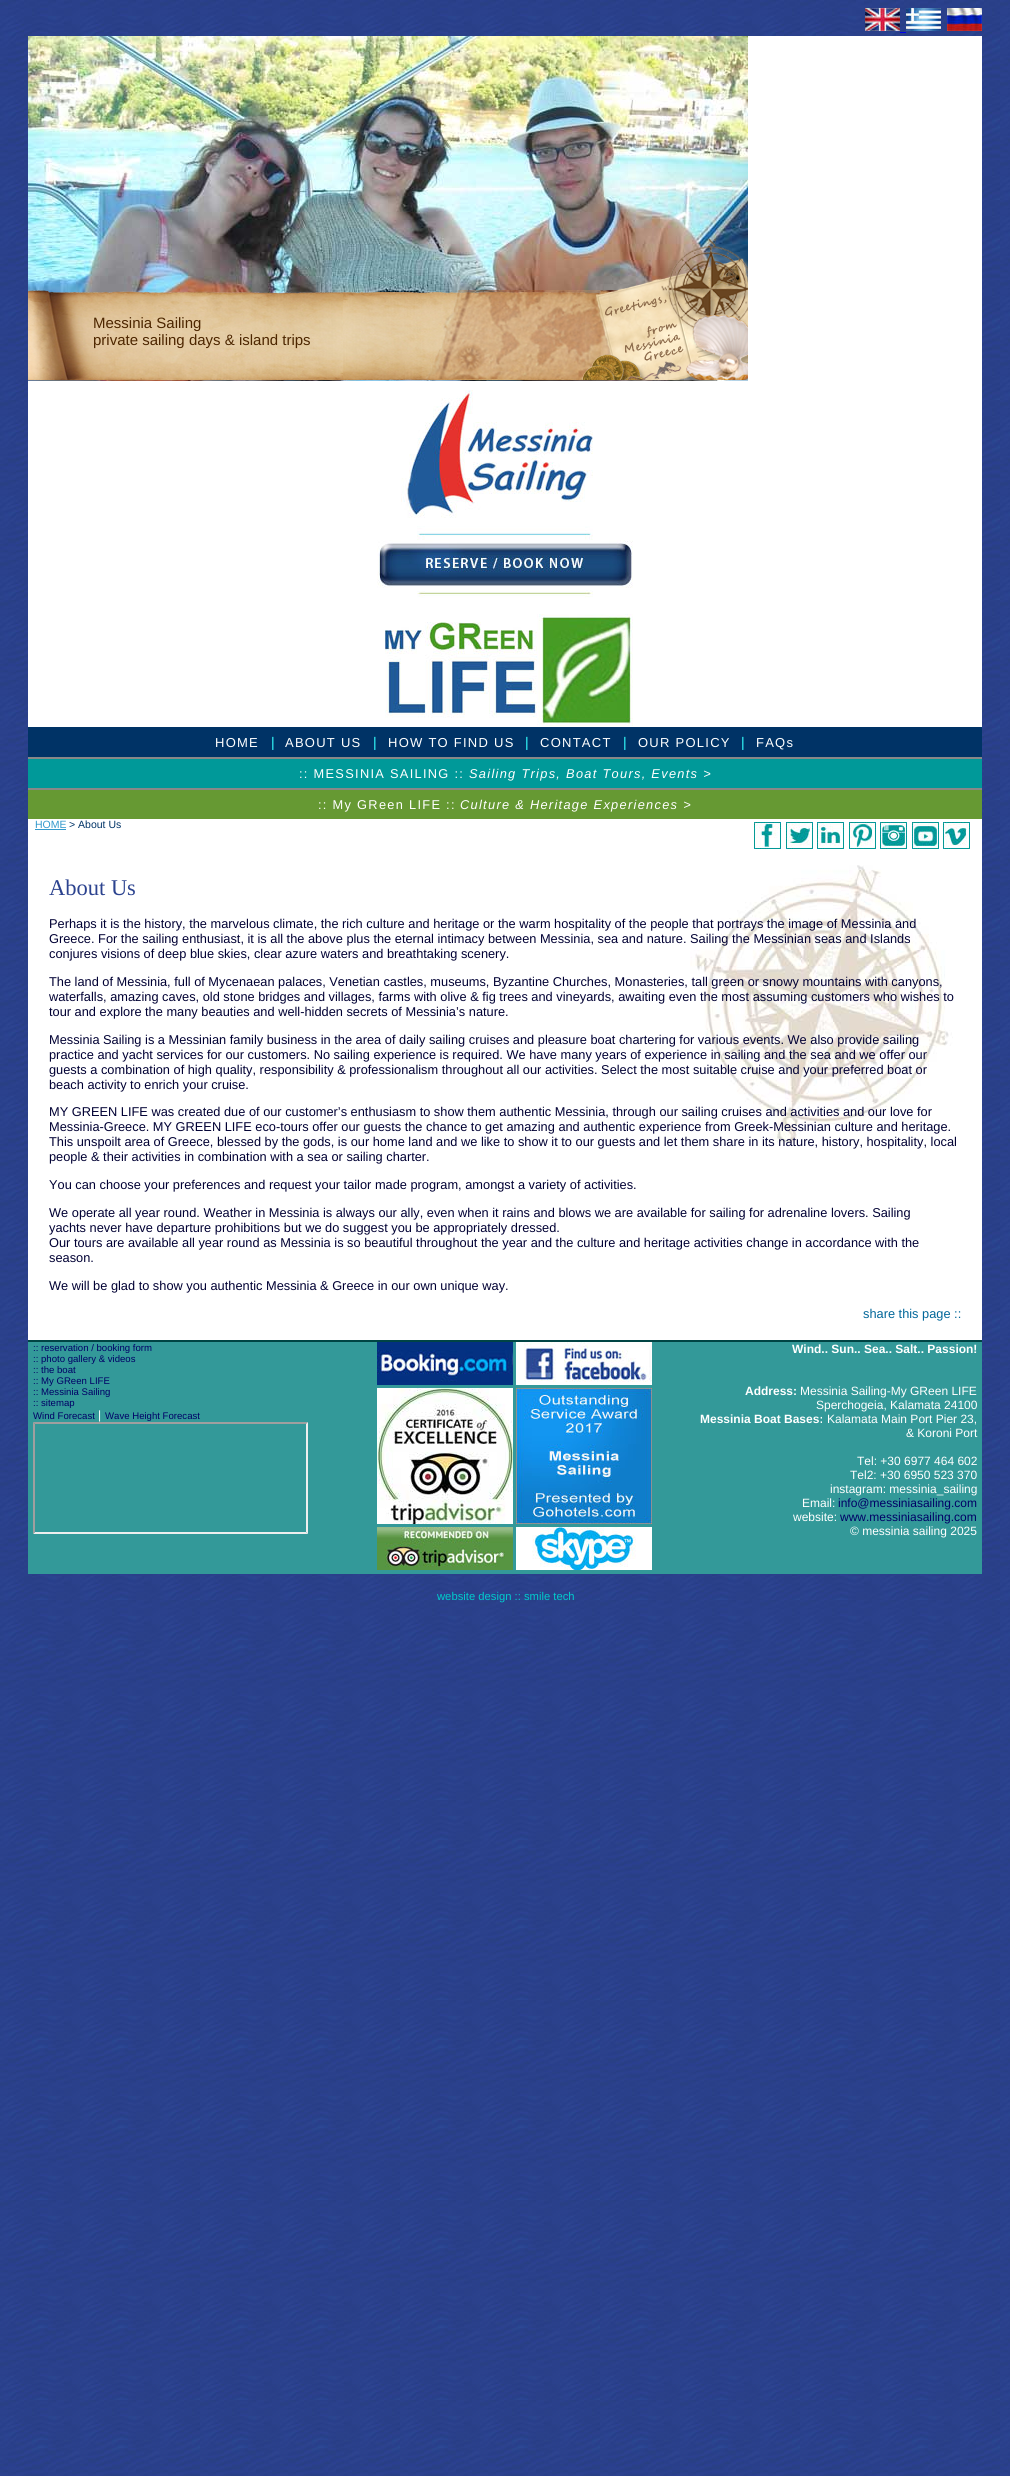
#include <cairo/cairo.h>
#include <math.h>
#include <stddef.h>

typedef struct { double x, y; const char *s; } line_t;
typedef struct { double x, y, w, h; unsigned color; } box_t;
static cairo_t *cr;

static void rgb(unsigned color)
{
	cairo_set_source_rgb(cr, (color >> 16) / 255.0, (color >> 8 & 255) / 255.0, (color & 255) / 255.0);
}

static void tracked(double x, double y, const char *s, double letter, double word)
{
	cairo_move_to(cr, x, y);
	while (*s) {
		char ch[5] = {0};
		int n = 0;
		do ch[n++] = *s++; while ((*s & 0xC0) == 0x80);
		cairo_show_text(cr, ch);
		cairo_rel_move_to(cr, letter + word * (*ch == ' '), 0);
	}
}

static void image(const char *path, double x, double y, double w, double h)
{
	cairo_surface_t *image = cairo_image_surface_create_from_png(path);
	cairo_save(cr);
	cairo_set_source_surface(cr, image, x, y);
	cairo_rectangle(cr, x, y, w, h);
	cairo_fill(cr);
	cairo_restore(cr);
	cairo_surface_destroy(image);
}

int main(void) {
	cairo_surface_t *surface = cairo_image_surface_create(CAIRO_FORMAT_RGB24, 1010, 2476);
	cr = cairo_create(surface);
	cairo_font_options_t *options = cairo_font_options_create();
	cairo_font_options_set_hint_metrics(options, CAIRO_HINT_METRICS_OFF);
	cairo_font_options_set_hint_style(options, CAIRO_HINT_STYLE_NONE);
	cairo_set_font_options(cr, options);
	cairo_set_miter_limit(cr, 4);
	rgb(0xffffff);
	cairo_paint(cr);
	image("img/1.png", 0, 0, 1010, 2476);
	image("img/2.png", 865, 8, 35, 23);
	image("img/3.png", 906, 8, 35, 23);
	image("img/4.png", 947, 8, 35, 23);
	rgb(0x0000ee);
	cairo_rectangle(cr, 900, 32, 6, 1);
	cairo_fill(cr);
	rgb(0xffffff);
	cairo_rectangle(cr, 28, 36, 954, 1304);
	cairo_fill(cr);
	image("img/5.png", 28, 36, 720, 345);
	image("img/6.png", 28, 239, 720, 141);
	image("img/7.png", 401, 390, 192, 150);
	image("img/8.png", 377, 540, 256, 48);
	image("img/9.png", 385, 590, 248, 136);
	{
		static const box_t items[] = {
			{28, 727, 954, 30, 0x003366},
			{28, 759, 954, 29, 0x009999},
			{28, 757, 954, 2, 0x888888},
			{28, 790, 954, 29, 0x669933},
			{28, 788, 954, 2, 0x888888},
			{35, 829, 31, 1, 0x3399cc},
		};
		for (size_t i = 0; i < sizeof items / sizeof *items; i++) {
			rgb(items[i].color);
			cairo_rectangle(cr, items[i].x, items[i].y, items[i].w, items[i].h);
			cairo_fill(cr);
		}
	}
	image("img/10.png", 754, 822, 27, 27);
	image("img/11.png", 786, 822, 27, 27);
	image("img/12.png", 817, 822, 27, 27);
	image("img/13.png", 849, 822, 27, 27);
	image("img/14.png", 880, 822, 27, 27);
	image("img/15.png", 912, 822, 27, 27);
	image("img/16.png", 943, 822, 27, 27);
	image("img/17.png", 690, 865, 263, 278);
	rgb(0x339999);
	cairo_rectangle(cr, 28, 1342, 954, 232);
	cairo_fill(cr);
	rgb(0x004444);
	cairo_rectangle(cr, 28, 1340, 954, 2);
	cairo_fill(cr);
	rgb(0x9f9f9f);
	cairo_new_path(cr);
	cairo_move_to(cr, 33, 1422);
	cairo_line_to(cr, 308, 1422);
	cairo_line_to(cr, 306, 1424);
	cairo_line_to(cr, 35, 1424);
	cairo_close_path(cr);
	cairo_fill(cr);
	rgb(0xeeeeee);
	cairo_new_path(cr);
	cairo_move_to(cr, 308, 1422);
	cairo_line_to(cr, 308, 1534);
	cairo_line_to(cr, 306, 1532);
	cairo_line_to(cr, 306, 1424);
	cairo_close_path(cr);
	cairo_fill(cr);
	cairo_new_path(cr);
	cairo_move_to(cr, 308, 1534);
	cairo_line_to(cr, 33, 1534);
	cairo_line_to(cr, 35, 1532);
	cairo_line_to(cr, 306, 1532);
	cairo_close_path(cr);
	cairo_fill(cr);
	rgb(0x9f9f9f);
	cairo_new_path(cr);
	cairo_move_to(cr, 33, 1534);
	cairo_line_to(cr, 33, 1422);
	cairo_line_to(cr, 35, 1424);
	cairo_line_to(cr, 35, 1532);
	cairo_close_path(cr);
	cairo_fill(cr);
	image("img/18.png", 377, 1342, 136, 43);
	image("img/19.png", 516, 1342, 136, 43);
	image("img/20.png", 377, 1388, 136, 136);
	image("img/21.png", 516, 1388, 136, 136);
	image("img/22.png", 377, 1527, 136, 43);
	image("img/23.png", 516, 1527, 136, 43);
	cairo_select_font_face(cr, "Liberation Sans", CAIRO_FONT_SLANT_NORMAL, CAIRO_FONT_WEIGHT_NORMAL);
	cairo_set_font_size(cr, 15);
	rgb(0x4d2600);
	cairo_move_to(cr, 93, 328);
	cairo_show_text(cr, "Messinia Sailing");
	cairo_move_to(cr, 93, 345);
	cairo_show_text(cr, "private sailing days & island trips");
	cairo_set_font_size(cr, 13);
	rgb(0xffffff);
	tracked(215, 747, "HOME", 1.25, 0);
	cairo_set_font_size(cr, 14);
	rgb(0x33ffff);
	cairo_move_to(cr, 271, 747);
	cairo_show_text(cr, "|");
	cairo_set_font_size(cr, 13);
	rgb(0xffffff);
	tracked(285, 747, "ABOUT US", 1.25, 0);
	cairo_set_font_size(cr, 14);
	rgb(0x33ffff);
	cairo_move_to(cr, 373, 747);
	cairo_show_text(cr, "|");
	cairo_set_font_size(cr, 13);
	rgb(0xffffff);
	tracked(388, 747, "HOW TO FIND US", 1.25, 0);
	cairo_set_font_size(cr, 14);
	rgb(0x33ffff);
	cairo_move_to(cr, 525, 747);
	cairo_show_text(cr, "|");
	cairo_set_font_size(cr, 13);
	rgb(0xffffff);
	tracked(540, 747, "CONTACT", 1.25, 0);
	cairo_set_font_size(cr, 14);
	rgb(0x33ffff);
	cairo_move_to(cr, 623, 747);
	cairo_show_text(cr, "|");
	cairo_set_font_size(cr, 13);
	rgb(0xffffff);
	tracked(638, 747, "OUR POLICY", 1.25, 0);
	cairo_set_font_size(cr, 14);
	rgb(0x33ffff);
	cairo_move_to(cr, 741, 747);
	cairo_show_text(cr, "|");
	cairo_set_font_size(cr, 13);
	rgb(0xffffff);
	tracked(756, 747, "FAQs", 1.25, 0);
	cairo_set_font_size(cr, 12.8);
	tracked(299, 778, ":: MESSINIA SAILING ::", 1.3, 0);
	cairo_select_font_face(cr, "Liberation Sans", CAIRO_FONT_SLANT_ITALIC, CAIRO_FONT_WEIGHT_NORMAL);
	tracked(469, 778, "Sailing Trips, Boat Tours, Events >", 1.3, 0);
	cairo_select_font_face(cr, "Liberation Sans", CAIRO_FONT_SLANT_NORMAL, CAIRO_FONT_WEIGHT_NORMAL);
	tracked(318, 809, ":: My GReen LIFE ::", 1.3, 0);
	cairo_select_font_face(cr, "Liberation Sans", CAIRO_FONT_SLANT_ITALIC, CAIRO_FONT_WEIGHT_NORMAL);
	tracked(460, 809, "Culture & Heritage Experiences >", 1.3, 0);
	cairo_select_font_face(cr, "Liberation Sans", CAIRO_FONT_SLANT_NORMAL, CAIRO_FONT_WEIGHT_NORMAL);
	cairo_set_font_size(cr, 10.5);
	rgb(0x3399cc);
	cairo_move_to(cr, 35, 828);
	cairo_show_text(cr, "HOME");
	rgb(0x003366);
	cairo_move_to(cr, 69, 828);
	cairo_show_text(cr, "> About Us");
	cairo_select_font_face(cr, "Liberation Serif", CAIRO_FONT_SLANT_NORMAL, CAIRO_FONT_WEIGHT_NORMAL);
	cairo_set_font_size(cr, 22.5);
	rgb(0x2c438f);
	cairo_move_to(cr, 49, 895);
	cairo_show_text(cr, "About Us");
	cairo_select_font_face(cr, "Liberation Sans", CAIRO_FONT_SLANT_NORMAL, CAIRO_FONT_WEIGHT_NORMAL);
	cairo_set_font_size(cr, 12.8);
	rgb(0x000033);
	{
		static const line_t items[] = {
			{49, 928, "Perhaps it is the history, the marvelous climate, the rich culture and heritage or the warm hospitality of the people that portrays the image of Messinia and"},
			{49, 943, "Greece. For the sailing enthusiast, it is all the above plus the eternal intimacy between Messinia, sea and nature. Sailing the Messinian seas and Islands"},
			{49, 958, "conjures visions of deep blue skies, clear azure waters and breathtaking scenery."},
			{49, 986, "The land of Messinia, full of Mycenaean palaces, Venetian castles, museums, Byzantine Churches, Monasteries, tall green or snowy mountains with canyons,"},
			{49, 1001, "waterfalls, amazing caves, old stone bridges and villages, farms with olive & fig trees and vineyards, awaiting even the most assuming customers who wishes to"},
			{49, 1016, "tour and explore the many beauties and well-hidden secrets of Messinia’s nature."},
			{49, 1044, "Messinia Sailing is a Messinian family business in the area of daily sailing cruises and pleasure boat chartering for various events. We also provide sailing"},
			{49, 1059, "practice and yacht services for our customers. No sailing experience is required. We have many years of experience in sailing and the sea and we offer our"},
			{49, 1074, "guests a combination of high quality, responsibility & professionalism throughout all our activities. Select the most suitable cruise and your preferred boat or"},
			{49, 1089, "beach activity to enrich your cruise."},
			{49, 1116, "MY GREEN LIFE was created due of our customer’s enthusiasm to show them authentic Messinia, through our sailing cruises and activities and our love for"},
			{49, 1131, "Messinia-Greece. MY GREEN LIFE eco-tours offer our guests the chance to get amazing and authentic experience from Greek-Messinian culture and heritage."},
			{49, 1146, "This unspoilt area of Greece, blessed by the gods, is our home land and we like to show it to our guests and let them share in its nature, history, hospitality, local"},
			{49, 1161, "people & their activities in combination with a sea or sailing charter."},
			{49, 1189, "You can choose your preferences and request your tailor made program, amongst a variety of activities."},
			{49, 1217, "We operate all year round. Weather in Messinia is always our ally, even when it rains and blows we are available for sailing for adrenaline lovers. Sailing"},
			{49, 1232, "yachts never have departure prohibitions but we do suggest you be appropriately dressed."},
			{49, 1247, "Our tours are available all year round as Messinia is so beautiful throughout the year and the culture and heritage activities change in accordance with the"},
			{49, 1262, "season."},
			{49, 1290, "We will be glad to show you authentic Messinia & Greece in our own unique way."},
		};
		for (size_t i = 0; i < sizeof items / sizeof *items; i++) {
			cairo_move_to(cr, items[i].x, items[i].y);
			cairo_show_text(cr, items[i].s);
		}
	}
	rgb(0x006699);
	cairo_move_to(cr, 863, 1318);
	cairo_show_text(cr, "share this page ::");
	cairo_set_font_size(cr, 9.6);
	rgb(0x000066);
	{
		static const line_t items[] = {
			{33, 1351, ":: reservation / booking form"},
			{33, 1362, ":: photo gallery & videos"},
			{33, 1373, ":: the boat"},
			{33, 1384, ":: My GReen LIFE"},
			{33, 1395, ":: Messinia Sailing"},
			{33, 1406, ":: sitemap"},
			{33, 1419, "Wind Forecast"},
		};
		for (size_t i = 0; i < sizeof items / sizeof *items; i++) {
			cairo_move_to(cr, items[i].x, items[i].y);
			cairo_show_text(cr, items[i].s);
		}
	}
	cairo_set_font_size(cr, 12);
	rgb(0xffffff);
	cairo_move_to(cr, 98, 1419);
	cairo_show_text(cr, "|");
	cairo_set_font_size(cr, 9.6);
	rgb(0x000066);
	cairo_move_to(cr, 105, 1419);
	cairo_show_text(cr, "Wave Height Forecast");
	cairo_select_font_face(cr, "Liberation Sans", CAIRO_FONT_SLANT_NORMAL, CAIRO_FONT_WEIGHT_BOLD);
	cairo_set_font_size(cr, 12);
	rgb(0xffffff);
	cairo_move_to(cr, 792, 1353);
	cairo_show_text(cr, "Wind.. Sun.. Sea.. Salt.. Passion!");
	cairo_move_to(cr, 745, 1395);
	cairo_show_text(cr, "Address:");
	cairo_select_font_face(cr, "Liberation Sans", CAIRO_FONT_SLANT_NORMAL, CAIRO_FONT_WEIGHT_NORMAL);
	cairo_move_to(cr, 800, 1395);
	cairo_show_text(cr, "Messinia Sailing-My GReen LIFE");
	cairo_move_to(cr, 816, 1409);
	cairo_show_text(cr, "Sperchogeia, Kalamata 24100");
	cairo_select_font_face(cr, "Liberation Sans", CAIRO_FONT_SLANT_NORMAL, CAIRO_FONT_WEIGHT_BOLD);
	cairo_move_to(cr, 700, 1423);
	cairo_show_text(cr, "Messinia Boat Bases:");
	cairo_select_font_face(cr, "Liberation Sans", CAIRO_FONT_SLANT_NORMAL, CAIRO_FONT_WEIGHT_NORMAL);
	{
		static const line_t items[] = {
			{827, 1423, "Kalamata Main Port Pier 23,"},
			{906, 1437, "& Koroni Port"},
			{857, 1465, "Tel: +30 6977 464 602"},
			{850, 1479, "Tel2: +30 6950 523 370"},
			{830, 1493, "instagram: messinia_sailing"},
			{802, 1507, "Email:"},
		};
		for (size_t i = 0; i < sizeof items / sizeof *items; i++) {
			cairo_move_to(cr, items[i].x, items[i].y);
			cairo_show_text(cr, items[i].s);
		}
	}
	rgb(0x000066);
	cairo_move_to(cr, 838, 1507);
	cairo_show_text(cr, "info@messiniasailing.com");
	rgb(0xffffff);
	cairo_move_to(cr, 793, 1521);
	cairo_show_text(cr, "website:");
	rgb(0x000066);
	cairo_move_to(cr, 840, 1521);
	cairo_show_text(cr, "www.messiniasailing.com");
	rgb(0xffffff);
	cairo_move_to(cr, 850, 1535);
	cairo_show_text(cr, "© messinia sailing 2025");
	cairo_set_font_size(cr, 11.25);
	rgb(0x00cccc);
	cairo_move_to(cr, 437, 1600);
	cairo_show_text(cr, "website design :: smile tech");
	cairo_surface_write_to_png(surface, "page.png");
	cairo_font_options_destroy(options);
	cairo_destroy(cr);
	cairo_surface_destroy(surface);
	return 0;
}
